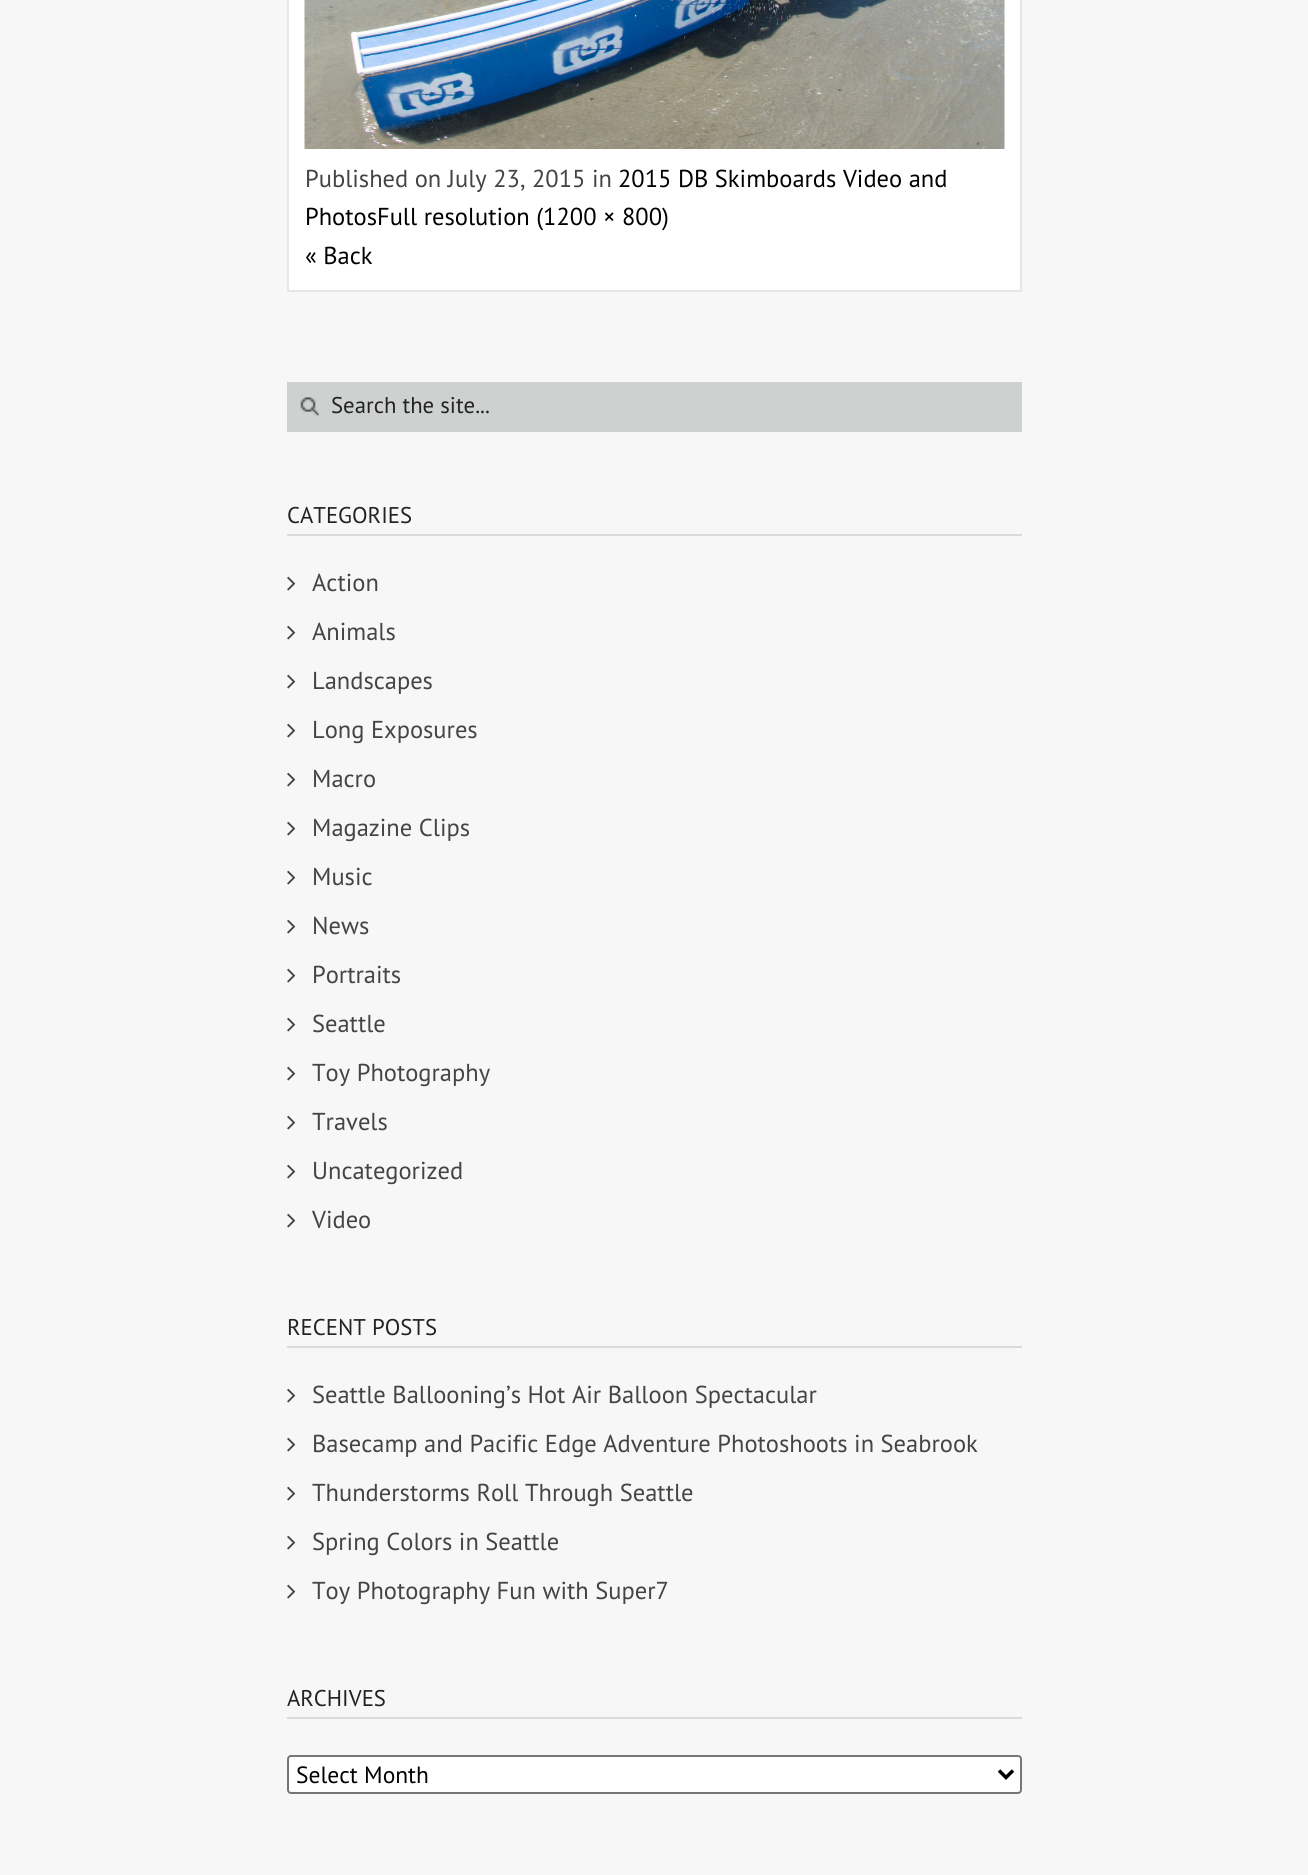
#include <cairo/cairo.h>
#include <math.h>
#include <stddef.h>

typedef struct { double x, y; const char *s; } line_t;
static cairo_t *cr;

static void rgb(unsigned color)
{
	cairo_set_source_rgb(cr, (color >> 16) / 255.0, (color >> 8 & 255) / 255.0, (color & 255) / 255.0);
}

static void rrect(double x, double y, double w, double h, double r)
{
	cairo_new_sub_path(cr);
	cairo_arc(cr, x + w - r, y + h - r, r, 0, M_PI / 2);
	cairo_arc(cr, x + r, y + h - r, r, M_PI / 2, M_PI);
	cairo_arc(cr, x + r, y + r, r, M_PI, 1.5 * M_PI);
	cairo_arc(cr, x + w - r, y + r, r, 1.5 * M_PI, 2 * M_PI);
	cairo_close_path(cr);
}

static void image(const char *path, double x, double y, double w, double h)
{
	cairo_surface_t *image = cairo_image_surface_create_from_png(path);
	cairo_save(cr);
	cairo_set_source_surface(cr, image, x, y);
	cairo_rectangle(cr, x, y, w, h);
	cairo_fill(cr);
	cairo_restore(cr);
	cairo_surface_destroy(image);
}

int main(void) {
	cairo_surface_t *surface = cairo_image_surface_create(CAIRO_FORMAT_RGB24, 1308, 1875);
	cr = cairo_create(surface);
	cairo_font_options_t *options = cairo_font_options_create();
	cairo_font_options_set_hint_metrics(options, CAIRO_HINT_METRICS_OFF);
	cairo_font_options_set_hint_style(options, CAIRO_HINT_STYLE_NONE);
	cairo_set_font_options(cr, options);
	cairo_set_miter_limit(cr, 4);
	rgb(0xf7f7f7);
	cairo_paint(cr);
	rgb(0xffffff);
	cairo_rectangle(cr, 288, -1, 733, 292);
	cairo_fill_preserve(cr);
	rgb(0xe6e6e6);
	cairo_stroke(cr);
	image("img/1.png", 304, 0, 701, 149);
	rgb(0xcfd1d1);
	cairo_rectangle(cr, 287, 382, 735, 50);
	cairo_fill(cr);
	image("img/2.png", 300, 397, 19, 19);
	rgb(0xdadada);
	cairo_rectangle(cr, 287, 534, 735, 2);
	cairo_fill(cr);
	image("img/3.png", 287, 576, 9, 15);
	image("img/3.png", 287, 625, 9, 15);
	image("img/3.png", 287, 674, 9, 15);
	image("img/3.png", 287, 723, 9, 15);
	image("img/3.png", 287, 772, 9, 15);
	image("img/3.png", 287, 821, 9, 15);
	image("img/3.png", 287, 870, 9, 15);
	image("img/3.png", 287, 919, 9, 15);
	image("img/3.png", 287, 968, 9, 15);
	image("img/3.png", 287, 1017, 9, 15);
	image("img/3.png", 287, 1066, 9, 15);
	image("img/3.png", 287, 1115, 9, 15);
	image("img/3.png", 287, 1164, 9, 15);
	image("img/3.png", 287, 1213, 9, 15);
	cairo_rectangle(cr, 287, 1346, 735, 2);
	cairo_fill(cr);
	image("img/3.png", 287, 1388, 9, 15);
	image("img/3.png", 287, 1437, 9, 15);
	image("img/3.png", 287, 1486, 9, 15);
	image("img/3.png", 287, 1535, 9, 15);
	image("img/3.png", 287, 1584, 9, 15);
	cairo_rectangle(cr, 287, 1717, 735, 2);
	cairo_fill(cr);
	rgb(0xffffff);
	rrect(288, 1756, 733, 37, 3);
	cairo_fill_preserve(cr);
	rgb(0x767676);
	cairo_stroke(cr);
	cairo_new_path(cr);
	cairo_move_to(cr, 999, 1770.5);
	cairo_line_to(cr, 1006, 1777.5);
	cairo_line_to(cr, 1013, 1770.5);
	rgb(0x000000);
	cairo_set_line_width(cr, 3.5);
	cairo_stroke(cr);
	cairo_select_font_face(cr, "PT Sans", CAIRO_FONT_SLANT_NORMAL, CAIRO_FONT_WEIGHT_NORMAL);
	cairo_set_font_size(cr, 24.5);
	rgb(0x444444);
	cairo_move_to(cr, 305, 187);
	cairo_show_text(cr, "Published on July 23, 2015 in");
	rgb(0x000000);
	{
		static const line_t items[] = {
			{618, 187, "2015 DB Skimboards Video and"},
			{305, 225, "PhotosFull resolution (1200 × 800)"},
			{305, 264, "« Back"},
		};
		for (size_t i = 0; i < sizeof items / sizeof *items; i++) {
			cairo_move_to(cr, items[i].x, items[i].y);
			cairo_show_text(cr, items[i].s);
		}
	}
	cairo_set_font_size(cr, 22.75);
	rgb(0x222222);
	cairo_move_to(cr, 331, 413);
	cairo_show_text(cr, "Search the site...");
	cairo_move_to(cr, 287, 523);
	cairo_show_text(cr, "CATEGORIES");
	cairo_set_font_size(cr, 24.5);
	rgb(0x444444);
	{
		static const line_t items[] = {
			{312, 591, "Action"},
			{312, 640, "Animals"},
			{312, 689, "Landscapes"},
			{312, 738, "Long Exposures"},
			{312, 787, "Macro"},
			{312, 836, "Magazine Clips"},
			{312, 885, "Music"},
			{312, 934, "News"},
			{312, 983, "Portraits"},
			{312, 1032, "Seattle"},
			{312, 1081, "Toy Photography"},
			{312, 1130, "Travels"},
			{312, 1179, "Uncategorized"},
			{312, 1228, "Video"},
		};
		for (size_t i = 0; i < sizeof items / sizeof *items; i++) {
			cairo_move_to(cr, items[i].x, items[i].y);
			cairo_show_text(cr, items[i].s);
		}
	}
	cairo_set_font_size(cr, 22.75);
	rgb(0x222222);
	cairo_move_to(cr, 287, 1335);
	cairo_show_text(cr, "RECENT POSTS");
	cairo_set_font_size(cr, 24.5);
	rgb(0x444444);
	{
		static const line_t items[] = {
			{312, 1403, "Seattle Ballooning’s Hot Air Balloon Spectacular"},
			{312, 1452, "Basecamp and Pacific Edge Adventure Photoshoots in Seabrook"},
			{312, 1501, "Thunderstorms Roll Through Seattle"},
			{312, 1550, "Spring Colors in Seattle"},
			{312, 1599, "Toy Photography Fun with Super7"},
		};
		for (size_t i = 0; i < sizeof items / sizeof *items; i++) {
			cairo_move_to(cr, items[i].x, items[i].y);
			cairo_show_text(cr, items[i].s);
		}
	}
	cairo_set_font_size(cr, 22.75);
	rgb(0x222222);
	cairo_move_to(cr, 287, 1706);
	cairo_show_text(cr, "ARCHIVES");
	cairo_set_font_size(cr, 23.5);
	rgb(0x000000);
	cairo_move_to(cr, 296, 1783);
	cairo_show_text(cr, "Select Month");
	cairo_surface_write_to_png(surface, "page.png");
	cairo_font_options_destroy(options);
	cairo_destroy(cr);
	cairo_surface_destroy(surface);
	return 0;
}
